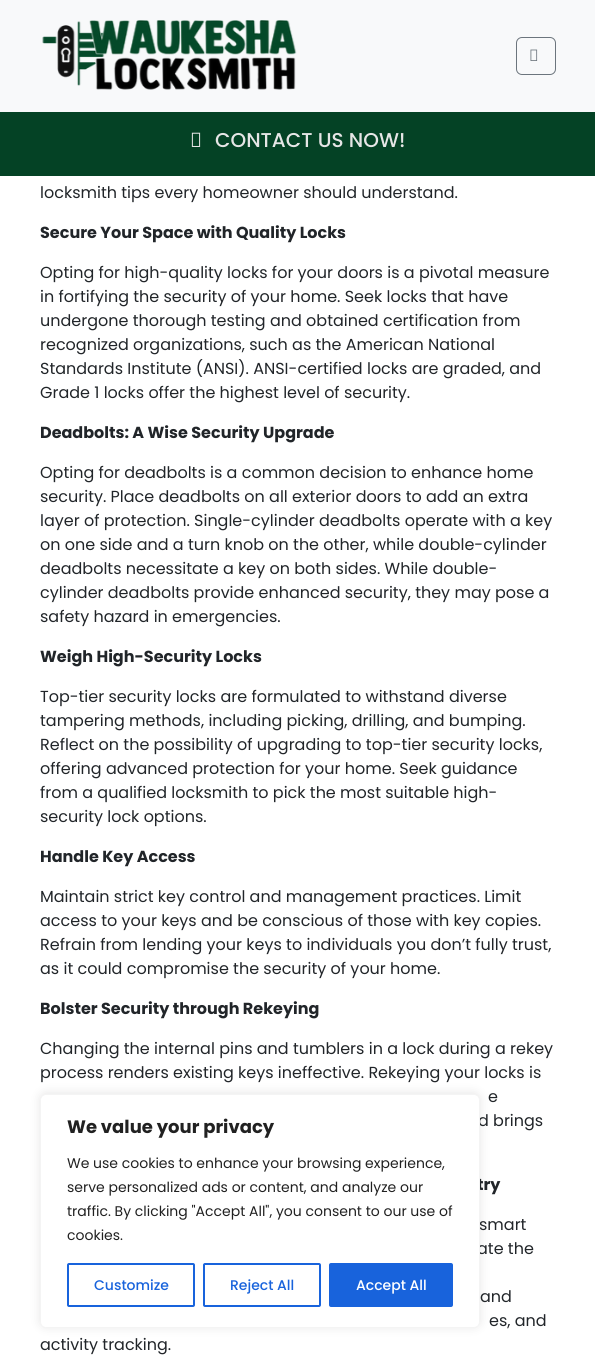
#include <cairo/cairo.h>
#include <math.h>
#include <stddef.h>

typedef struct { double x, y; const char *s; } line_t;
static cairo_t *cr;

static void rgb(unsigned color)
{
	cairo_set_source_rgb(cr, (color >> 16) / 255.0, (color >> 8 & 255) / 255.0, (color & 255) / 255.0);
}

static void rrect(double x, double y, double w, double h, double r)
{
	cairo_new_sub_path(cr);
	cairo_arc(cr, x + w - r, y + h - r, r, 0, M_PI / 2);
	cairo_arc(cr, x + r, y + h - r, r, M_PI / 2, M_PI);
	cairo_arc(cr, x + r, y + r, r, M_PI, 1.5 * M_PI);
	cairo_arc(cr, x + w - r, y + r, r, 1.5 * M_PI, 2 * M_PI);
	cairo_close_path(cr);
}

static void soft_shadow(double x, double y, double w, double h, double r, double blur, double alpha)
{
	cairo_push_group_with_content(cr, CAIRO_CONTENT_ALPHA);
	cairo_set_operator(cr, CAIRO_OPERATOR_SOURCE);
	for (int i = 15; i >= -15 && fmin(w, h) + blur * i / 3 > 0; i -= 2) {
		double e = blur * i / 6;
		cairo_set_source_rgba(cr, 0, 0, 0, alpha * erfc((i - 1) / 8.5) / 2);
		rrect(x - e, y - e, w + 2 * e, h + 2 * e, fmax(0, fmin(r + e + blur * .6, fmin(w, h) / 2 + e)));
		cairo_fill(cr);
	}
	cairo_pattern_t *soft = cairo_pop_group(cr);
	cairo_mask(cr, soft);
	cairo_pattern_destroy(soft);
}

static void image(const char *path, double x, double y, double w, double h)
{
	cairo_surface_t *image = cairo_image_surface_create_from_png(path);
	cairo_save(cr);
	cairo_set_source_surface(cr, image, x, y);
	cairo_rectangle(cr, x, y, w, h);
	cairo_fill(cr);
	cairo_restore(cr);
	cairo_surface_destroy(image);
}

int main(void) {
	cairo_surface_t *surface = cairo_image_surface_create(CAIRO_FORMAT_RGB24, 595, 1368);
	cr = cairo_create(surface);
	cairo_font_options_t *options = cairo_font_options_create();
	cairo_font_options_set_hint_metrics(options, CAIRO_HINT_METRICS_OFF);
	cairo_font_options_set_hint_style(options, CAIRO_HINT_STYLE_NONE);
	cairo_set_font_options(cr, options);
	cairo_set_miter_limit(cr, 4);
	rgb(0xffffff);
	cairo_paint(cr);
	rgb(0xf8f9fa);
	cairo_rectangle(cr, 0, 0, 595, 112);
	cairo_fill(cr);
	image("img/1.png", 42, 20, 255, 70);
	rrect(516.5, 37.5, 39, 37, 5.5);
	rgb(0x6c757d);
	cairo_set_line_width(cr, 1);
	cairo_stroke(cr);
	image("img/2.png", 530, 49, 8, 12);
	rgb(0x044225);
	cairo_rectangle(cr, 0, 112, 595, 64);
	cairo_fill(cr);
	image("img/3.png", 191, 132, 10, 15);
	rgb(0xacabab);
	soft_shadow(40, 1093, 440, 234, 6, 5, 0.3);
	cairo_select_font_face(cr, "Poppins Medium", CAIRO_FONT_SLANT_NORMAL, CAIRO_FONT_WEIGHT_NORMAL);
	cairo_set_font_size(cr, 20);
	rgb(0xe6e6e6);
	cairo_move_to(cr, 215, 147);
	cairo_show_text(cr, "CONTACT US NOW!");
	cairo_select_font_face(cr, "Poppins", CAIRO_FONT_SLANT_NORMAL, CAIRO_FONT_WEIGHT_NORMAL);
	cairo_set_font_size(cr, 16);
	rgb(0x212529);
	cairo_move_to(cr, 40, 198);
	cairo_show_text(cr, "locksmith tips every homeowner should understand.");
	cairo_select_font_face(cr, "Poppins", CAIRO_FONT_SLANT_NORMAL, CAIRO_FONT_WEIGHT_BOLD);
	cairo_move_to(cr, 40, 238);
	cairo_show_text(cr, "Secure Your Space with Quality Locks");
	cairo_select_font_face(cr, "Poppins", CAIRO_FONT_SLANT_NORMAL, CAIRO_FONT_WEIGHT_NORMAL);
	{
		static const line_t items[] = {
			{40, 278, "Opting for high-quality locks for your doors is a pivotal measure"},
			{40, 302, "in fortifying the security of your home. Seek locks that have"},
			{40, 326, "undergone thorough testing and obtained certification from"},
			{40, 350, "recognized organizations, such as the American National"},
			{40, 374, "Standards Institute (ANSI). ANSI-certified locks are graded, and"},
			{40, 398, "Grade 1 locks offer the highest level of security."},
		};
		for (size_t i = 0; i < sizeof items / sizeof *items; i++) {
			cairo_move_to(cr, items[i].x, items[i].y);
			cairo_show_text(cr, items[i].s);
		}
	}
	cairo_select_font_face(cr, "Poppins", CAIRO_FONT_SLANT_NORMAL, CAIRO_FONT_WEIGHT_BOLD);
	cairo_move_to(cr, 40, 438);
	cairo_show_text(cr, "Deadbolts: A Wise Security Upgrade");
	cairo_select_font_face(cr, "Poppins", CAIRO_FONT_SLANT_NORMAL, CAIRO_FONT_WEIGHT_NORMAL);
	{
		static const line_t items[] = {
			{40, 478, "Opting for deadbolts is a common decision to enhance home"},
			{40, 502, "security. Place deadbolts on all exterior doors to add an extra"},
			{40, 526, "layer of protection. Single-cylinder deadbolts operate with a key"},
			{40, 550, "on one side and a turn knob on the other, while double-cylinder"},
			{40, 574, "deadbolts necessitate a key on both sides. While double-"},
			{40, 598, "cylinder deadbolts provide enhanced security, they may pose a"},
			{40, 622, "safety hazard in emergencies."},
		};
		for (size_t i = 0; i < sizeof items / sizeof *items; i++) {
			cairo_move_to(cr, items[i].x, items[i].y);
			cairo_show_text(cr, items[i].s);
		}
	}
	cairo_select_font_face(cr, "Poppins", CAIRO_FONT_SLANT_NORMAL, CAIRO_FONT_WEIGHT_BOLD);
	cairo_move_to(cr, 40, 662);
	cairo_show_text(cr, "Weigh High-Security Locks");
	cairo_select_font_face(cr, "Poppins", CAIRO_FONT_SLANT_NORMAL, CAIRO_FONT_WEIGHT_NORMAL);
	{
		static const line_t items[] = {
			{40, 702, "Top-tier security locks are formulated to withstand diverse"},
			{40, 726, "tampering methods, including picking, drilling, and bumping."},
			{40, 750, "Reflect on the possibility of upgrading to top-tier security locks,"},
			{40, 774, "offering advanced protection for your home. Seek guidance"},
			{40, 798, "from a qualified locksmith to pick the most suitable high-"},
			{40, 822, "security lock options."},
		};
		for (size_t i = 0; i < sizeof items / sizeof *items; i++) {
			cairo_move_to(cr, items[i].x, items[i].y);
			cairo_show_text(cr, items[i].s);
		}
	}
	cairo_select_font_face(cr, "Poppins", CAIRO_FONT_SLANT_NORMAL, CAIRO_FONT_WEIGHT_BOLD);
	cairo_move_to(cr, 40, 862);
	cairo_show_text(cr, "Handle Key Access");
	cairo_select_font_face(cr, "Poppins", CAIRO_FONT_SLANT_NORMAL, CAIRO_FONT_WEIGHT_NORMAL);
	{
		static const line_t items[] = {
			{40, 902, "Maintain strict key control and management practices. Limit"},
			{40, 926, "access to your keys and be conscious of those with key copies."},
			{40, 950, "Refrain from lending your keys to individuals you don’t fully trust,"},
			{40, 974, "as it could compromise the security of your home."},
		};
		for (size_t i = 0; i < sizeof items / sizeof *items; i++) {
			cairo_move_to(cr, items[i].x, items[i].y);
			cairo_show_text(cr, items[i].s);
		}
	}
	cairo_select_font_face(cr, "Poppins", CAIRO_FONT_SLANT_NORMAL, CAIRO_FONT_WEIGHT_BOLD);
	cairo_move_to(cr, 40, 1014);
	cairo_show_text(cr, "Bolster Security through Rekeying");
	cairo_select_font_face(cr, "Poppins", CAIRO_FONT_SLANT_NORMAL, CAIRO_FONT_WEIGHT_NORMAL);
	{
		static const line_t items[] = {
			{40, 1054, "Changing the internal pins and tumblers in a lock during a rekey"},
			{40, 1078, "process renders existing keys ineffective. Rekeying your locks is"},
			{488, 1102, "e"},
			{478, 1126, "d brings"},
		};
		for (size_t i = 0; i < sizeof items / sizeof *items; i++) {
			cairo_move_to(cr, items[i].x, items[i].y);
			cairo_show_text(cr, items[i].s);
		}
	}
	cairo_select_font_face(cr, "Poppins", CAIRO_FONT_SLANT_NORMAL, CAIRO_FONT_WEIGHT_BOLD);
	cairo_move_to(cr, 477, 1190);
	cairo_show_text(cr, "try");
	cairo_select_font_face(cr, "Poppins", CAIRO_FONT_SLANT_NORMAL, CAIRO_FONT_WEIGHT_NORMAL);
	{
		static const line_t items[] = {
			{479, 1230, "smart"},
			{477, 1254, "ate the"},
			{480, 1302, "and"},
			{489, 1326, "es, and"},
			{40, 1350, "activity tracking."},
		};
		for (size_t i = 0; i < sizeof items / sizeof *items; i++) {
			cairo_move_to(cr, items[i].x, items[i].y);
			cairo_show_text(cr, items[i].s);
		}
	}
	rgb(0xffffff);
	rrect(40.5, 1094.5, 439, 233, 5.5);
	cairo_fill_preserve(cr);
	rgb(0xf4f4f4);
	cairo_stroke(cr);
	cairo_select_font_face(cr, "Poppins", CAIRO_FONT_SLANT_NORMAL, CAIRO_FONT_WEIGHT_BOLD);
	cairo_set_font_size(cr, 18);
	rgb(0x212121);
	cairo_move_to(cr, 67, 1133);
	cairo_show_text(cr, "We value your privacy");
	cairo_select_font_face(cr, "Poppins", CAIRO_FONT_SLANT_NORMAL, CAIRO_FONT_WEIGHT_NORMAL);
	cairo_set_font_size(cr, 14);
	{
		static const line_t items[] = {
			{67, 1168, "We use cookies to enhance your browsing experience,"},
			{67, 1192, "serve personalized ads or content, and analyze our"},
			{67, 1216, "traffic. By clicking \"Accept All\", you consent to our use of"},
			{67, 1240, "cookies."},
		};
		for (size_t i = 0; i < sizeof items / sizeof *items; i++) {
			cairo_move_to(cr, items[i].x, items[i].y);
			cairo_show_text(cr, items[i].s);
		}
	}
	rrect(68, 1264, 126, 42, 1);
	rgb(0x1863dc);
	cairo_set_line_width(cr, 2);
	cairo_stroke(cr);
	cairo_select_font_face(cr, "Poppins Medium", CAIRO_FONT_SLANT_NORMAL, CAIRO_FONT_WEIGHT_NORMAL);
	cairo_move_to(cr, 94, 1290);
	cairo_show_text(cr, "Customize");
	rrect(204, 1264, 116, 42, 1);
	cairo_stroke(cr);
	cairo_move_to(cr, 230, 1290);
	cairo_show_text(cr, "Reject All");
	rrect(330, 1264, 122, 42, 1);
	cairo_fill_preserve(cr);
	cairo_stroke(cr);
	rgb(0xffffff);
	cairo_move_to(cr, 356, 1290);
	cairo_show_text(cr, "Accept All");
	cairo_surface_write_to_png(surface, "page.png");
	cairo_font_options_destroy(options);
	cairo_destroy(cr);
	cairo_surface_destroy(surface);
	return 0;
}
